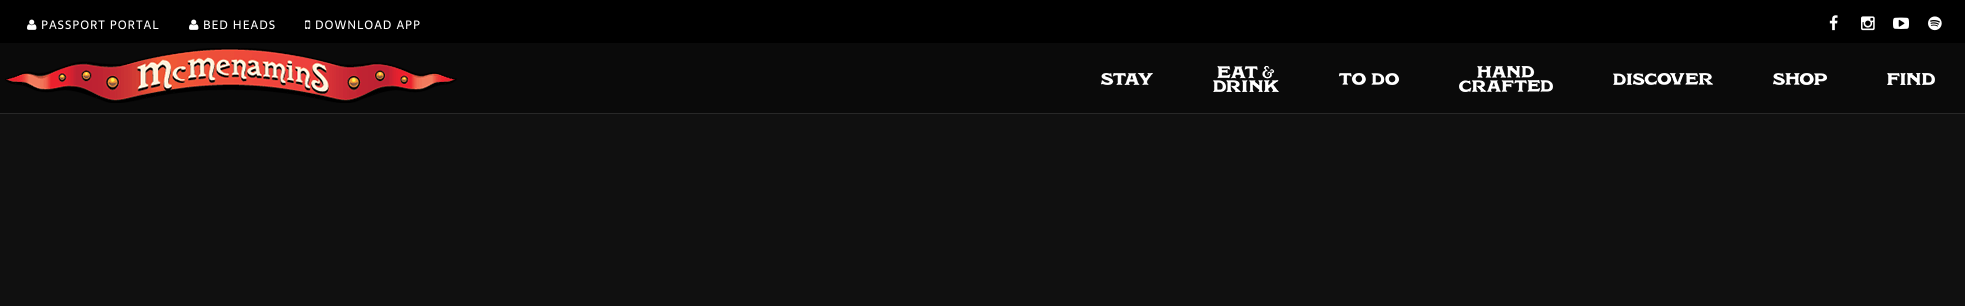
#include <cairo/cairo.h>
#include <math.h>
#include <stddef.h>

typedef struct { double x, y; const char *s; } line_t;
static cairo_t *cr;

static void rgb(unsigned color)
{
	cairo_set_source_rgb(cr, (color >> 16) / 255.0, (color >> 8 & 255) / 255.0, (color & 255) / 255.0);
}

static void tracked(double x, double y, const char *s, double letter, double word)
{
	cairo_move_to(cr, x, y);
	while (*s) {
		char ch[5] = {0};
		int n = 0;
		do ch[n++] = *s++; while ((*s & 0xC0) == 0x80);
		cairo_show_text(cr, ch);
		cairo_rel_move_to(cr, letter + word * (*ch == ' '), 0);
	}
}

static void image(const char *path, double x, double y, double w, double h)
{
	cairo_surface_t *image = cairo_image_surface_create_from_png(path);
	cairo_save(cr);
	cairo_set_source_surface(cr, image, x, y);
	cairo_rectangle(cr, x, y, w, h);
	cairo_fill(cr);
	cairo_restore(cr);
	cairo_surface_destroy(image);
}

int main(void) {
	cairo_surface_t *surface = cairo_image_surface_create(CAIRO_FORMAT_RGB24, 1965, 306);
	cr = cairo_create(surface);
	cairo_font_options_t *options = cairo_font_options_create();
	cairo_font_options_set_hint_metrics(options, CAIRO_HINT_METRICS_OFF);
	cairo_font_options_set_hint_style(options, CAIRO_HINT_STYLE_NONE);
	cairo_set_font_options(cr, options);
	cairo_set_miter_limit(cr, 4);
	rgb(0x101010);
	cairo_paint(cr);
	rgb(0x000000);
	cairo_rectangle(cr, 0, 0, 1965, 43);
	cairo_fill(cr);
	image("img/1.png", 27, 19, 10, 11);
	image("img/1.png", 189, 19, 10, 11);
	image("img/2.png", 305, 20, 6, 9);
	image("img/3.png", 1829, 15, 9, 16);
	image("img/4.png", 1861, 16, 14, 15);
	image("img/5.png", 1893, 17, 16, 12);
	image("img/6.png", 1928, 16, 14, 15);
	rgb(0x282828);
	cairo_rectangle(cr, 0, 113, 1965, 1);
	cairo_fill(cr);
	rgb(0x0a0a0a);
	cairo_rectangle(cr, 0, 43, 1965, 70);
	cairo_fill(cr);
	image("img/7.png", 5, 48, 452, 55);
	image("img/8.png", 1101, 73, 52, 12);
	image("img/9.png", 1213, 66, 66, 26);
	image("img/10.png", 1339, 73, 60, 12);
	image("img/11.png", 1459, 66, 94, 26);
	image("img/12.png", 1613, 73, 100, 12);
	image("img/13.png", 1773, 73, 54, 12);
	image("img/14.png", 1887, 73, 48, 12);
	cairo_select_font_face(cr, "Sarala", CAIRO_FONT_SLANT_NORMAL, CAIRO_FONT_WEIGHT_NORMAL);
	cairo_set_font_size(cr, 12);
	rgb(0xffffff);
	{
		static const line_t items[] = {
			{41, 29, "PASSPORT PORTAL"},
			{203, 29, "BED HEADS"},
			{315, 29, "DOWNLOAD APP"},
		};
		for (size_t i = 0; i < sizeof items / sizeof *items; i++) {
			tracked(items[i].x, items[i].y, items[i].s, 1, 0);
		}
	}
	cairo_surface_write_to_png(surface, "page.png");
	cairo_font_options_destroy(options);
	cairo_destroy(cr);
	cairo_surface_destroy(surface);
	return 0;
}
